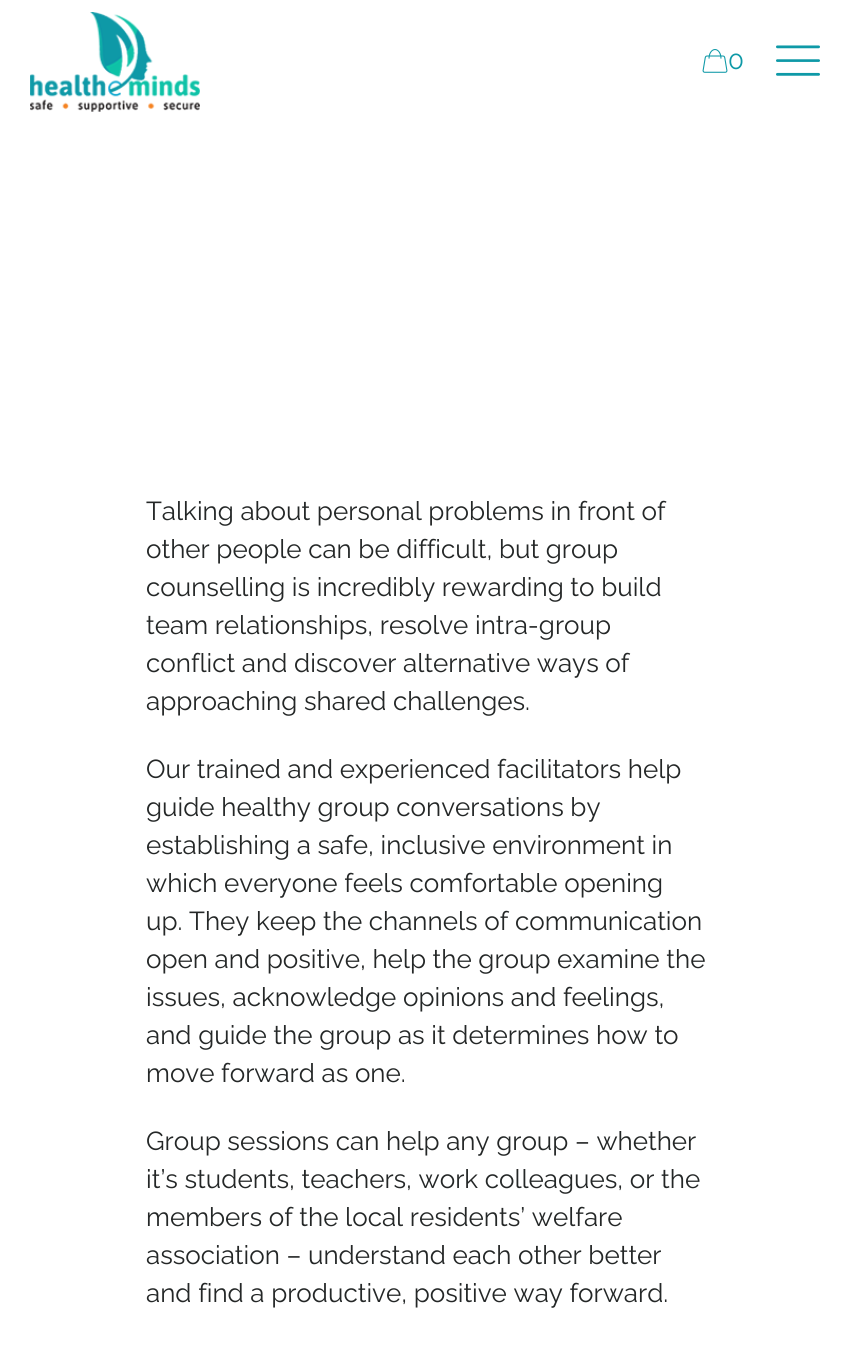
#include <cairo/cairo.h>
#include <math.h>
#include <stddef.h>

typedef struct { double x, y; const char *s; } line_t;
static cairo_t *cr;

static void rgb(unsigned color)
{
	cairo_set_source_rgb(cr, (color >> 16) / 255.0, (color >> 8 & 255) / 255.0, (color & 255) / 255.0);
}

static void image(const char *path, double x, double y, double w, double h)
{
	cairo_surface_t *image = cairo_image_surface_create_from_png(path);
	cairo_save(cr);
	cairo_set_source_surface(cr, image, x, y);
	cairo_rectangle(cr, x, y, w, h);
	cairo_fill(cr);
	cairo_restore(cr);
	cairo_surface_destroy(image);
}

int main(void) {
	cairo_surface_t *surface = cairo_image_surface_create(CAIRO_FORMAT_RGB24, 852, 1371);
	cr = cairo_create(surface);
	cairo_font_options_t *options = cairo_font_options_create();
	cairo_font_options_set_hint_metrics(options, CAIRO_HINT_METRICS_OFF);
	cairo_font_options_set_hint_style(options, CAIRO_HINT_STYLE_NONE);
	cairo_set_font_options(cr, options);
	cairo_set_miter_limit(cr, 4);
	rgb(0xffffff);
	cairo_paint(cr);
	image("img/1.png", 30, 12, 170, 100);
	image("img/2.png", 776, 45, 44, 31);
	image("img/3.png", 702, 49, 26, 24);
	cairo_select_font_face(cr, "Raleway Thin", CAIRO_FONT_SLANT_NORMAL, CAIRO_FONT_WEIGHT_NORMAL);
	cairo_set_font_size(cr, 26);
	rgb(0x0e99a7);
	cairo_move_to(cr, 728, 69);
	cairo_show_text(cr, "0");
	rgb(0x242727);
	{
		static const line_t items[] = {
			{146, 520, "Talking about personal problems in front of"},
			{146, 558, "other people can be difficult, but group"},
			{146, 596, "counselling is incredibly rewarding to build"},
			{146, 634, "team relationships, resolve intra-group"},
			{146, 672, "conflict and discover alternative ways of"},
			{146, 710, "approaching shared challenges."},
			{146, 778, "Our trained and experienced facilitators help"},
			{146, 816, "guide healthy group conversations by"},
			{146, 854, "establishing a safe, inclusive environment in"},
			{146, 892, "which everyone feels comfortable opening"},
			{146, 930, "up. They keep the channels of communication"},
			{146, 968, "open and positive, help the group examine the"},
			{146, 1006, "issues, acknowledge opinions and feelings,"},
			{146, 1044, "and guide the group as it determines how to"},
			{146, 1082, "move forward as one."},
			{146, 1150, "Group sessions can help any group – whether"},
			{146, 1188, "it’s students, teachers, work colleagues, or the"},
			{146, 1226, "members of the local residents’ welfare"},
			{146, 1264, "association – understand each other better"},
			{146, 1302, "and find a productive, positive way forward."},
		};
		for (size_t i = 0; i < sizeof items / sizeof *items; i++) {
			cairo_move_to(cr, items[i].x, items[i].y);
			cairo_show_text(cr, items[i].s);
		}
	}
	cairo_surface_write_to_png(surface, "page.png");
	cairo_font_options_destroy(options);
	cairo_destroy(cr);
	cairo_surface_destroy(surface);
	return 0;
}
